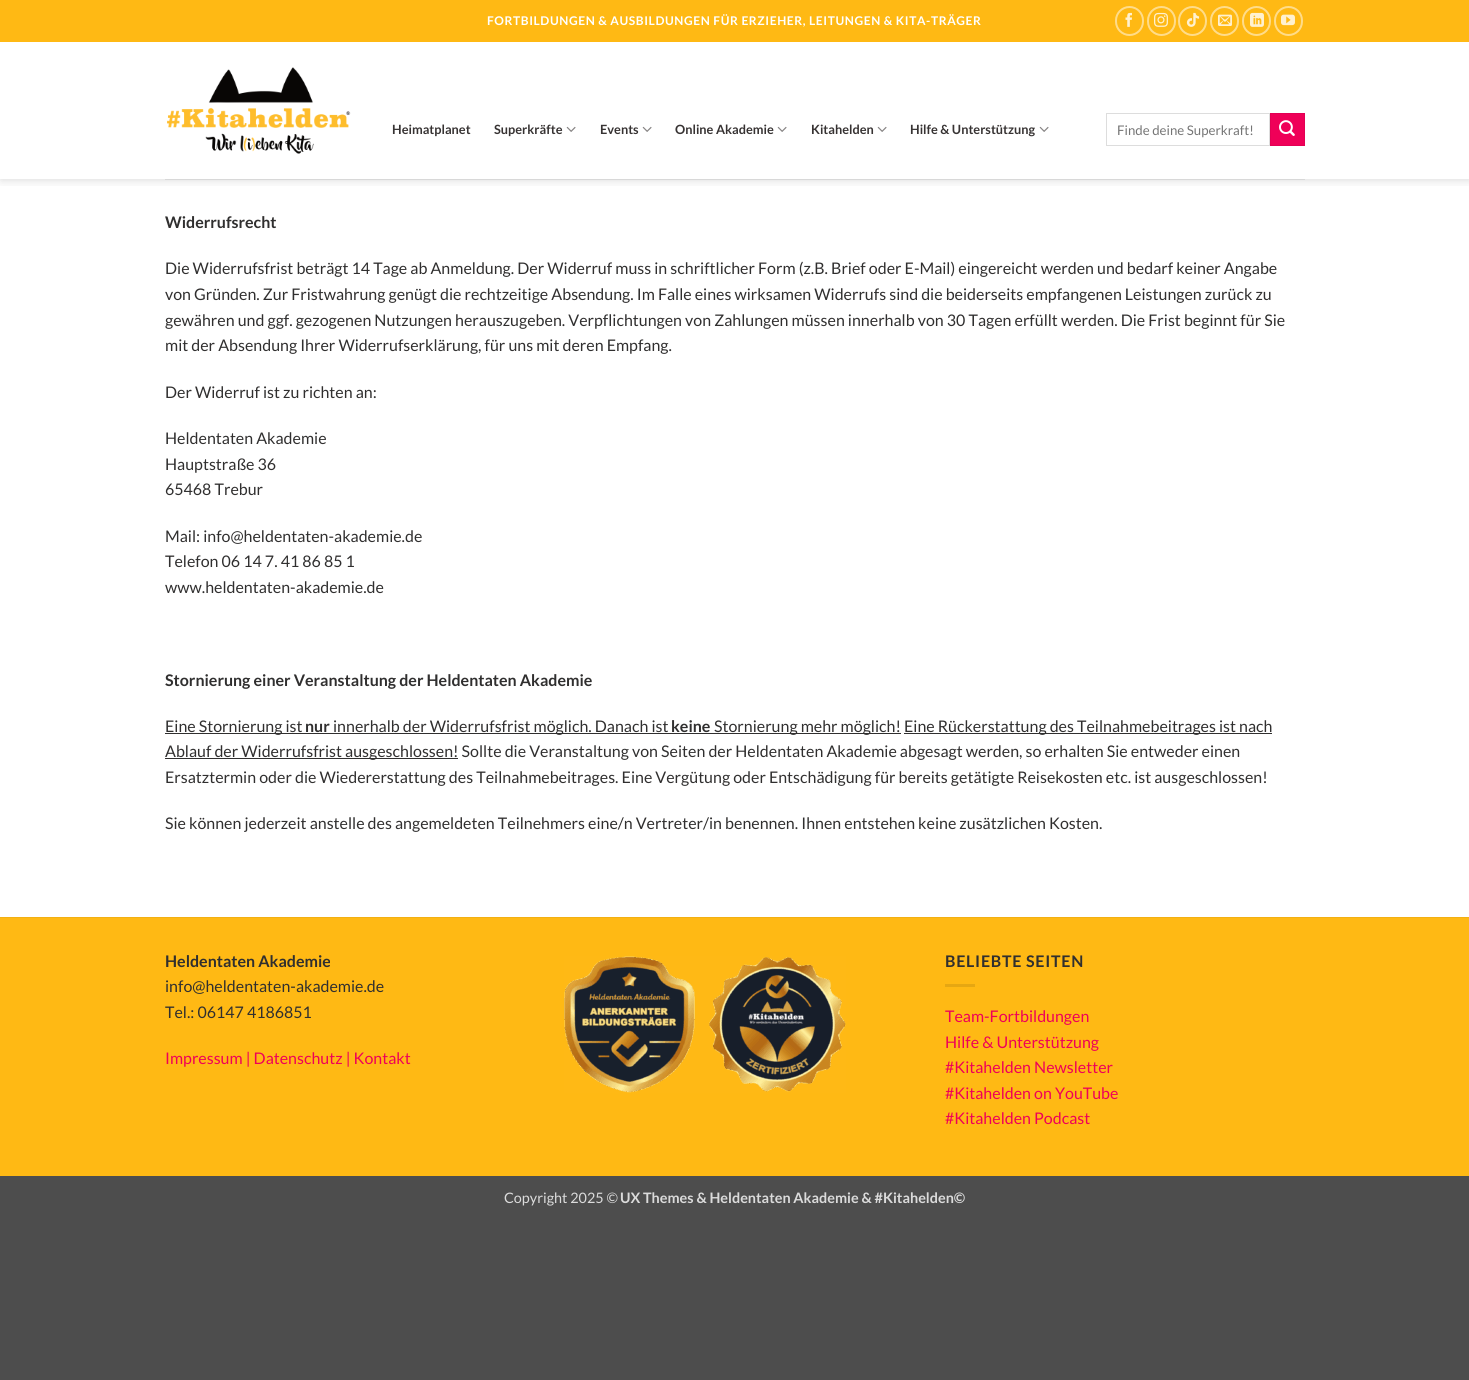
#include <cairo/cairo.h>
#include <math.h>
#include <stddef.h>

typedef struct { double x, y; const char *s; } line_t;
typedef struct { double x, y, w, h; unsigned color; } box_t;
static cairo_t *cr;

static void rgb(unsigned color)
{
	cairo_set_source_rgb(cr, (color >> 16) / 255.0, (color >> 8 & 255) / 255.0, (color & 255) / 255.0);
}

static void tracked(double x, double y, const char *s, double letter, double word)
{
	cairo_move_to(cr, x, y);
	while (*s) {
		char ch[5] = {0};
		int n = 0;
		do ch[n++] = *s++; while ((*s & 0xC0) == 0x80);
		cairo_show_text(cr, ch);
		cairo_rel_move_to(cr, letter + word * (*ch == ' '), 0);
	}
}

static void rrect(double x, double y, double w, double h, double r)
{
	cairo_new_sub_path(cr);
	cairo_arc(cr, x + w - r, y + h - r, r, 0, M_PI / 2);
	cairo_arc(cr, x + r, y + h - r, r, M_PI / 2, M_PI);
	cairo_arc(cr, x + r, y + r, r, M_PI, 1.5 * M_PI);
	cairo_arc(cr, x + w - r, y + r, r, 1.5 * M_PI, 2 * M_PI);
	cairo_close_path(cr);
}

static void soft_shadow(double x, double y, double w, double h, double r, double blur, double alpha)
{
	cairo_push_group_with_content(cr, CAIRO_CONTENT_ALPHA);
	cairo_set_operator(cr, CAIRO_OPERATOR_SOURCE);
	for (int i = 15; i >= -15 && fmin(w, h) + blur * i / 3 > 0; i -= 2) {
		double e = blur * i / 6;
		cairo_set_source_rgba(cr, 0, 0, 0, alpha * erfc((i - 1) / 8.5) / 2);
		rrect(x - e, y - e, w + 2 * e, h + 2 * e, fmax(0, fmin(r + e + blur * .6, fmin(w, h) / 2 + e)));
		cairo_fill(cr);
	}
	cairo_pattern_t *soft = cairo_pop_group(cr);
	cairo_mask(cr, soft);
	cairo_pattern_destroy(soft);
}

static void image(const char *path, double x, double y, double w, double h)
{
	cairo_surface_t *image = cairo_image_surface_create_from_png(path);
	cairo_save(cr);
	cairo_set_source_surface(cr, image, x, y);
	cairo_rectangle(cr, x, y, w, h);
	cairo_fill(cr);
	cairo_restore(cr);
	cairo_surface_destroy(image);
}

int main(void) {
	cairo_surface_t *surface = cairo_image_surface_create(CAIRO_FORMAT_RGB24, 1469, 1380);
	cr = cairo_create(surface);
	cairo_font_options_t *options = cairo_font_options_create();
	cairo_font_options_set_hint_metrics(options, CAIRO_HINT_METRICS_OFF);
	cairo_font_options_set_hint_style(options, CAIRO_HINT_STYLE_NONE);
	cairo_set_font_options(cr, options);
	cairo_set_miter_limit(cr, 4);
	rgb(0x4d4d4d);
	cairo_paint(cr);
	rgb(0xffffff);
	cairo_rectangle(cr, 0, 42, 1469, 875);
	cairo_fill(cr);
	cairo_save(cr);
	cairo_rectangle(cr, 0, 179, 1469, 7);
	cairo_clip(cr);
	rgb(0x000000);
	soft_shadow(1, 1, 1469, 179, 0, 5, 0.15);
	cairo_restore(cr);
	rgb(0xffb914);
	cairo_rectangle(cr, 0, 0, 1469, 42);
	cairo_fill(cr);
	rrect(1116, 7, 27, 28, 13.5);
	rgb(0xffdc8a);
	cairo_stroke(cr);
	image("img/1.png", 1125, 12, 7, 15);
	rrect(1148, 7, 27, 28, 13.5);
	cairo_stroke(cr);
	image("img/2.png", 1154, 12, 14, 15);
	rrect(1179, 7, 27, 28, 13.5);
	cairo_stroke(cr);
	image("img/3.png", 1186, 12, 14, 15);
	rrect(1211, 7, 27, 28, 13.5);
	cairo_stroke(cr);
	image("img/4.png", 1218, 14, 14, 12);
	rrect(1243, 7, 27, 28, 13.5);
	cairo_stroke(cr);
	image("img/5.png", 1250, 12, 14, 15);
	rrect(1275, 7, 27, 28, 13.5);
	cairo_stroke(cr);
	image("img/6.png", 1281, 14, 14, 12);
	image("img/7.png", 167, 67, 184, 87);
	image("img/8.png", 566, 126, 10, 6);
	image("img/8.png", 642, 126, 10, 6);
	image("img/8.png", 777, 126, 10, 6);
	image("img/8.png", 877, 126, 10, 6);
	image("img/8.png", 1039, 126, 10, 6);
	cairo_rectangle(cr, 1106.5, 113.5, 163, 32);
	rgb(0xdddddd);
	cairo_set_line_width(cr, 1);
	cairo_stroke(cr);
	rgb(0xef0058);
	cairo_rectangle(cr, 1270.5, 113.5, 34, 32);
	cairo_fill_preserve(cr);
	rgb(0xe30054);
	cairo_stroke(cr);
	image("img/9.png", 1279, 120, 16, 16);
	{
		static const box_t items[] = {
			{165, 179, 1140, 1, 0xd8d8d8},
			{165, 733, 736, 1, 0x302f2f},
			{904, 733, 368, 1, 0x302f2f},
			{165, 758, 293, 1, 0x302f2f},
			{0, 918, 1469, 258, 0xffb914},
			{0, 917, 1469, 1, 0xf2b013},
		};
		for (size_t i = 0; i < sizeof items / sizeof *items; i++) {
			rgb(items[i].color);
			cairo_rectangle(cr, items[i].x, items[i].y, items[i].w, items[i].h);
			cairo_fill(cr);
		}
	}
	image("img/10.png", 564, 956, 282, 137);
	rgb(0xe6a712);
	cairo_rectangle(cr, 945, 984, 30, 3);
	cairo_fill(cr);
	cairo_select_font_face(cr, "Lato", CAIRO_FONT_SLANT_NORMAL, CAIRO_FONT_WEIGHT_BOLD);
	cairo_set_font_size(cr, 12);
	rgb(0xffffff);
	tracked(487, 25, "FORTBILDUNGEN & AUSBILDUNGEN FÜR ERZIEHER, LEITUNGEN & KITA-TRÄGER", 0.6, 0);
	cairo_set_font_size(cr, 12.75);
	rgb(0x373333);
	{
		static const line_t items[] = {
			{392, 134, "Heimatplanet"},
			{494, 134, "Superkräfte"},
			{600, 134, "Events"},
			{675, 134, "Online Akademie"},
			{811, 134, "Kitahelden"},
			{910, 134, "Hilfe & Unterstützung"},
		};
		for (size_t i = 0; i < sizeof items / sizeof *items; i++) {
			cairo_move_to(cr, items[i].x, items[i].y);
			cairo_show_text(cr, items[i].s);
		}
	}
	cairo_select_font_face(cr, "Lato", CAIRO_FONT_SLANT_NORMAL, CAIRO_FONT_WEIGHT_NORMAL);
	cairo_set_font_size(cr, 13.25);
	rgb(0x757575);
	cairo_move_to(cr, 1117, 135);
	cairo_show_text(cr, "Finde deine Superkraft!");
	cairo_select_font_face(cr, "Lato", CAIRO_FONT_SLANT_NORMAL, CAIRO_FONT_WEIGHT_BOLD);
	cairo_set_font_size(cr, 16);
	rgb(0x302f2f);
	cairo_move_to(cr, 165, 228);
	cairo_show_text(cr, "Widerrufsrecht");
	cairo_select_font_face(cr, "Lato", CAIRO_FONT_SLANT_NORMAL, CAIRO_FONT_WEIGHT_NORMAL);
	{
		static const line_t items[] = {
			{165, 274, "Die Widerrufsfrist beträgt 14 Tage ab Anmeldung. Der Widerruf muss in schriftlicher Form (z.B. Brief oder E-Mail) eingereicht werden und bedarf keiner Angabe"},
			{165, 300, "von Gründen. Zur Fristwahrung genügt die rechtzeitige Absendung. Im Falle eines wirksamen Widerrufs sind die beiderseits empfangenen Leistungen zurück zu"},
			{165, 326, "gewähren und ggf. gezogenen Nutzungen herauszugeben. Verpflichtungen von Zahlungen müssen innerhalb von 30 Tagen erfüllt werden. Die Frist beginnt für Sie"},
			{165, 351, "mit der Absendung Ihrer Widerrufserklärung, für uns mit deren Empfang."},
			{165, 398, "Der Widerruf ist zu richten an:"},
			{165, 444, "Heldentaten Akademie"},
			{165, 470, "Hauptstraße 36"},
			{165, 495, "65468 Trebur"},
			{165, 542, "Mail: info@heldentaten-akademie.de"},
			{165, 567, "Telefon 06 14 7. 41 86 85 1"},
			{165, 593, "www.heldentaten-akademie.de"},
		};
		for (size_t i = 0; i < sizeof items / sizeof *items; i++) {
			cairo_move_to(cr, items[i].x, items[i].y);
			cairo_show_text(cr, items[i].s);
		}
	}
	cairo_select_font_face(cr, "Lato", CAIRO_FONT_SLANT_NORMAL, CAIRO_FONT_WEIGHT_BOLD);
	cairo_move_to(cr, 165, 686);
	cairo_show_text(cr, "Stornierung einer Veranstaltung der Heldentaten Akademie");
	cairo_select_font_face(cr, "Lato", CAIRO_FONT_SLANT_NORMAL, CAIRO_FONT_WEIGHT_NORMAL);
	cairo_move_to(cr, 165, 732);
	cairo_show_text(cr, "Eine Stornierung ist");
	cairo_select_font_face(cr, "Lato", CAIRO_FONT_SLANT_NORMAL, CAIRO_FONT_WEIGHT_BOLD);
	cairo_move_to(cr, 305, 732);
	cairo_show_text(cr, "nur");
	cairo_select_font_face(cr, "Lato", CAIRO_FONT_SLANT_NORMAL, CAIRO_FONT_WEIGHT_NORMAL);
	cairo_move_to(cr, 333, 732);
	cairo_show_text(cr, "innerhalb der Widerrufsfrist möglich. Danach ist");
	cairo_select_font_face(cr, "Lato", CAIRO_FONT_SLANT_NORMAL, CAIRO_FONT_WEIGHT_BOLD);
	cairo_move_to(cr, 671, 732);
	cairo_show_text(cr, "keine");
	cairo_select_font_face(cr, "Lato", CAIRO_FONT_SLANT_NORMAL, CAIRO_FONT_WEIGHT_NORMAL);
	{
		static const line_t items[] = {
			{714, 732, "Stornierung mehr möglich!"},
			{904, 732, "Eine Rückerstattung des Teilnahmebeitrages ist nach"},
			{165, 757, "Ablauf der Widerrufsfrist ausgeschlossen! Sollte die Veranstaltung von Seiten der Heldentaten Akademie abgesagt werden, so erhalten Sie entweder einen"},
			{165, 783, "Ersatztermin oder die Wiedererstattung des Teilnahmebeitrages. Eine Vergütung oder Entschädigung für bereits getätigte Reisekosten etc. ist ausgeschlossen!"},
			{165, 829, "Sie können jederzeit anstelle des angemeldeten Teilnehmers eine/n Vertreter/in benennen. Ihnen entstehen keine zusätzlichen Kosten."},
		};
		for (size_t i = 0; i < sizeof items / sizeof *items; i++) {
			cairo_move_to(cr, items[i].x, items[i].y);
			cairo_show_text(cr, items[i].s);
		}
	}
	cairo_select_font_face(cr, "Lato", CAIRO_FONT_SLANT_NORMAL, CAIRO_FONT_WEIGHT_BOLD);
	cairo_move_to(cr, 165, 967);
	cairo_show_text(cr, "Heldentaten Akademie");
	cairo_select_font_face(cr, "Lato", CAIRO_FONT_SLANT_NORMAL, CAIRO_FONT_WEIGHT_NORMAL);
	cairo_move_to(cr, 165, 992);
	cairo_show_text(cr, "info@heldentaten-akademie.de");
	cairo_move_to(cr, 165, 1018);
	cairo_show_text(cr, "Tel.: 06147 4186851");
	rgb(0xef0058);
	cairo_move_to(cr, 165, 1064);
	cairo_show_text(cr, "Impressum | Datenschutz | Kontakt");
	cairo_select_font_face(cr, "Lato", CAIRO_FONT_SLANT_NORMAL, CAIRO_FONT_WEIGHT_BOLD);
	rgb(0x302f2f);
	tracked(945, 967, "BELIEBTE SEITEN", 0.75, 0);
	cairo_select_font_face(cr, "Lato", CAIRO_FONT_SLANT_NORMAL, CAIRO_FONT_WEIGHT_NORMAL);
	rgb(0xef0058);
	{
		static const line_t items[] = {
			{945, 1022, "Team-Fortbildungen"},
			{945, 1048, "Hilfe & Unterstützung"},
			{945, 1073, "#Kitahelden Newsletter"},
			{945, 1099, "#Kitahelden on YouTube"},
			{945, 1124, "#Kitahelden Podcast"},
		};
		for (size_t i = 0; i < sizeof items / sizeof *items; i++) {
			cairo_move_to(cr, items[i].x, items[i].y);
			cairo_show_text(cr, items[i].s);
		}
	}
	cairo_set_font_size(cr, 14.4);
	rgb(0xdbdbdb);
	cairo_move_to(cr, 504, 1203);
	cairo_show_text(cr, "Copyright 2025 ©");
	cairo_select_font_face(cr, "Lato", CAIRO_FONT_SLANT_NORMAL, CAIRO_FONT_WEIGHT_BOLD);
	cairo_move_to(cr, 620, 1203);
	cairo_show_text(cr, "UX Themes & Heldentaten Akademie & #Kitahelden©");
	cairo_surface_write_to_png(surface, "page.png");
	cairo_font_options_destroy(options);
	cairo_destroy(cr);
	cairo_surface_destroy(surface);
	return 0;
}
